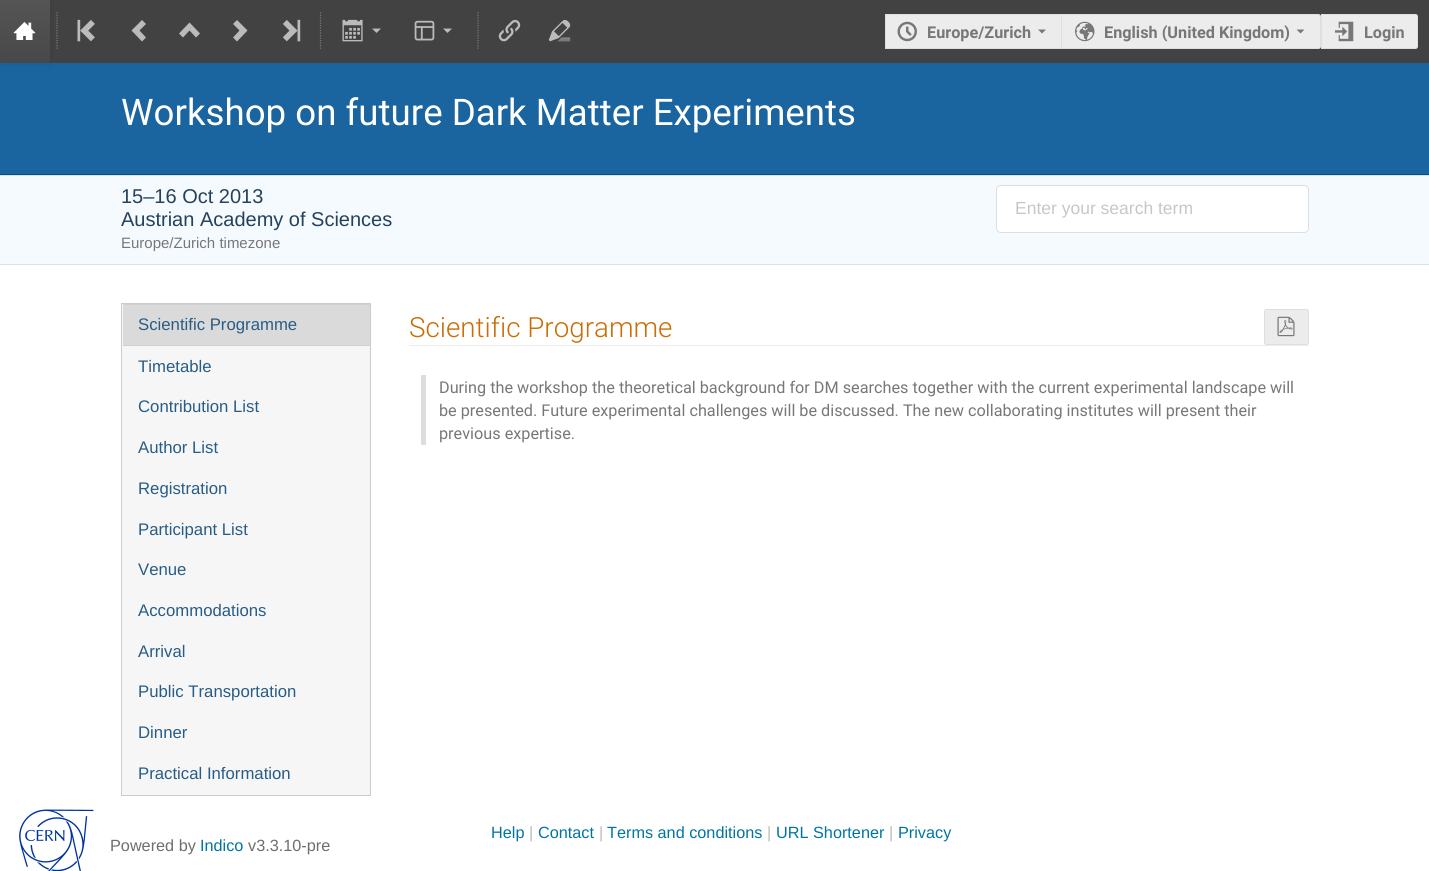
#include <cairo/cairo.h>
#include <math.h>
#include <stddef.h>

typedef struct { double x, y; const char *s; } line_t;
typedef struct { double x, y, w, h; unsigned color; } box_t;
static cairo_t *cr;

static void rgb(unsigned color)
{
	cairo_set_source_rgb(cr, (color >> 16) / 255.0, (color >> 8 & 255) / 255.0, (color & 255) / 255.0);
}

static void rrect(double x, double y, double w, double h, double r)
{
	cairo_new_sub_path(cr);
	cairo_arc(cr, x + w - r, y + h - r, r, 0, M_PI / 2);
	cairo_arc(cr, x + r, y + h - r, r, M_PI / 2, M_PI);
	cairo_arc(cr, x + r, y + r, r, M_PI, 1.5 * M_PI);
	cairo_arc(cr, x + w - r, y + r, r, 1.5 * M_PI, 2 * M_PI);
	cairo_close_path(cr);
}

static void soft_shadow(double x, double y, double w, double h, double r, double blur, double alpha)
{
	cairo_push_group_with_content(cr, CAIRO_CONTENT_ALPHA);
	cairo_set_operator(cr, CAIRO_OPERATOR_SOURCE);
	for (int i = 15; i >= -15 && fmin(w, h) + blur * i / 3 > 0; i -= 2) {
		double e = blur * i / 6;
		cairo_set_source_rgba(cr, 0, 0, 0, alpha * erfc((i - 1) / 8.5) / 2);
		rrect(x - e, y - e, w + 2 * e, h + 2 * e, fmax(0, fmin(r + e + blur * .6, fmin(w, h) / 2 + e)));
		cairo_fill(cr);
	}
	cairo_pattern_t *soft = cairo_pop_group(cr);
	cairo_mask(cr, soft);
	cairo_pattern_destroy(soft);
}

static void image(const char *path, double x, double y, double w, double h)
{
	cairo_surface_t *image = cairo_image_surface_create_from_png(path);
	cairo_save(cr);
	cairo_set_source_surface(cr, image, x, y);
	cairo_rectangle(cr, x, y, w, h);
	cairo_fill(cr);
	cairo_restore(cr);
	cairo_surface_destroy(image);
}

int main(void) {
	cairo_surface_t *surface = cairo_image_surface_create(CAIRO_FORMAT_RGB24, 1429, 871);
	cr = cairo_create(surface);
	cairo_font_options_t *options = cairo_font_options_create();
	cairo_font_options_set_hint_metrics(options, CAIRO_HINT_METRICS_OFF);
	cairo_font_options_set_hint_style(options, CAIRO_HINT_STYLE_NONE);
	cairo_set_font_options(cr, options);
	cairo_set_miter_limit(cr, 4);
	cairo_pattern_t *gradient;
	rgb(0xffffff);
	cairo_paint(cr);
	rgb(0x424242);
	cairo_rectangle(cr, 50, 0, 1379, 63);
	cairo_fill(cr);
	rgb(0x1a64a0);
	cairo_rectangle(cr, 0, 63, 1429, 111);
	cairo_fill(cr);
	rgb(0x141414);
	soft_shadow(1, 1, 50, 63, 0, 2.5, 0.1);
	gradient = cairo_pattern_create_linear(25, 0, 25, 63);
	cairo_pattern_add_color_stop_rgba(gradient, 0, 0.333, 0.333, 0.333, 1);
	cairo_pattern_add_color_stop_rgba(gradient, 1, 0.282, 0.282, 0.282, 1);
	cairo_set_source(cr, gradient);
	cairo_pattern_destroy(gradient);
	cairo_rectangle(cr, 0, 0, 50, 63);
	cairo_fill(cr);
	image("img/1.png", 13, 22, 23, 18);
	cairo_new_path(cr);
	cairo_move_to(cr, 57, 12.5);
	cairo_line_to(cr, 57, 50);
	rgb(0x777777);
	cairo_set_line_width(cr, 1.2);
	cairo_set_dash(cr, (double[]){1.25, 1.25}, 2, 0);
	cairo_stroke(cr);
	image("img/2.png", 77, 19, 18, 23);
	rgb(0xbbbbbb);
	cairo_new_path(cr);
	cairo_move_to(cr, 142, 41.5);
	cairo_line_to(cr, 146, 37.5);
	cairo_line_to(cr, 139.5, 30.5);
	cairo_line_to(cr, 146, 24);
	cairo_line_to(cr, 142, 20);
	cairo_line_to(cr, 131.5, 30.5);
	cairo_close_path(cr);
	cairo_fill(cr);
	cairo_new_path(cr);
	cairo_move_to(cr, 179, 33.5);
	cairo_line_to(cr, 183, 37.5);
	cairo_line_to(cr, 189.5, 30.5);
	cairo_line_to(cr, 196, 37.5);
	cairo_line_to(cr, 200, 33.5);
	cairo_line_to(cr, 189.5, 22.5);
	cairo_close_path(cr);
	cairo_fill(cr);
	cairo_new_path(cr);
	cairo_move_to(cr, 237, 20);
	cairo_line_to(cr, 233, 24);
	cairo_line_to(cr, 239.5, 30.5);
	cairo_line_to(cr, 233, 37.5);
	cairo_line_to(cr, 237, 41.5);
	cairo_line_to(cr, 247.5, 30.5);
	cairo_close_path(cr);
	cairo_fill(cr);
	image("img/3.png", 282, 19, 19, 23);
	cairo_new_path(cr);
	cairo_move_to(cr, 320.5, 12.5);
	cairo_line_to(cr, 320.5, 50);
	rgb(0x777777);
	cairo_stroke(cr);
	image("img/4.png", 342, 19, 21, 23);
	rgb(0xbbbbbb);
	cairo_new_path(cr);
	cairo_move_to(cr, 372, 28.5);
	cairo_line_to(cr, 376.5, 33);
	cairo_line_to(cr, 381, 28.5);
	cairo_close_path(cr);
	cairo_fill(cr);
	image("img/5.png", 414, 20, 21, 21);
	cairo_new_path(cr);
	cairo_move_to(cr, 443, 28.5);
	cairo_line_to(cr, 447.5, 33);
	cairo_line_to(cr, 452, 28.5);
	cairo_close_path(cr);
	cairo_fill(cr);
	cairo_new_path(cr);
	cairo_move_to(cr, 478, 12.5);
	cairo_line_to(cr, 478, 50);
	rgb(0x777777);
	cairo_stroke(cr);
	image("img/6.png", 498, 19, 23, 23);
	image("img/7.png", 548, 19, 23, 23);
	{
		static const box_t items[] = {
			{886, 15, 175, 33, 0xececec},
			{885, 14, 176, 1, 0xdfdfdf},
			{885, 48, 176, 1, 0xdfdfdf},
			{885, 14, 1, 35, 0xdfdfdf},
		};
		for (size_t i = 0; i < sizeof items / sizeof *items; i++) {
			rgb(items[i].color);
			cairo_rectangle(cr, items[i].x, items[i].y, items[i].w, items[i].h);
			cairo_fill(cr);
		}
	}
	image("img/8.png", 897, 21, 20, 21);
	rgb(0x777777);
	cairo_new_path(cr);
	cairo_move_to(cr, 1038, 29.5);
	cairo_line_to(cr, 1042, 33.5);
	cairo_line_to(cr, 1046, 29.5);
	cairo_close_path(cr);
	cairo_fill(cr);
	rgb(0xececec);
	cairo_new_path(cr);
	cairo_move_to(cr, 1061.5, 14.5);
	cairo_line_to(cr, 1318.5, 14.5);
	cairo_curve_to(cr, 1319.5, 14.5, 1320.5, 15.5, 1320.5, 16.5);
	cairo_line_to(cr, 1320.5, 46.5);
	cairo_curve_to(cr, 1320.5, 47.5, 1319.5, 48.5, 1318.5, 48.5);
	cairo_line_to(cr, 1061.5, 48.5);
	cairo_close_path(cr);
	cairo_fill_preserve(cr);
	rgb(0xdfdfdf);
	cairo_set_line_width(cr, 1);
	cairo_set_dash(cr, NULL, 0, 0);
	cairo_stroke(cr);
	image("img/9.png", 1075, 21, 20, 21);
	rgb(0x777777);
	cairo_new_path(cr);
	cairo_move_to(cr, 1296.5, 29.5);
	cairo_line_to(cr, 1300.5, 33.5);
	cairo_line_to(cr, 1304.5, 29.5);
	cairo_close_path(cr);
	cairo_fill(cr);
	rgb(0xececec);
	cairo_new_path(cr);
	cairo_move_to(cr, 1321.5, 14.5);
	cairo_line_to(cr, 1415.5, 14.5);
	cairo_curve_to(cr, 1416.5, 14.5, 1417.5, 15.5, 1417.5, 16.5);
	cairo_line_to(cr, 1417.5, 46.5);
	cairo_curve_to(cr, 1417.5, 47.5, 1416.5, 48.5, 1415.5, 48.5);
	cairo_line_to(cr, 1321.5, 48.5);
	cairo_close_path(cr);
	cairo_fill_preserve(cr);
	rgb(0xdfdfdf);
	cairo_stroke(cr);
	image("img/10.png", 1335, 21, 19, 21);
	{
		static const box_t items[] = {
			{0, 174, 1429, 1, 0x0f4c80},
			{0, 176, 1429, 88, 0xf5faff},
			{0, 175, 1429, 1, 0xd5e4f1},
			{0, 264, 1429, 1, 0xd5e4f1},
		};
		for (size_t i = 0; i < sizeof items / sizeof *items; i++) {
			rgb(items[i].color);
			cairo_rectangle(cr, items[i].x, items[i].y, items[i].w, items[i].h);
			cairo_fill(cr);
		}
	}
	rgb(0xffffff);
	rrect(996, 185, 313, 48, 5);
	cairo_fill(cr);
	rrect(996.5, 185.5, 312, 47, 4.5);
	cairo_set_source_rgba(cr, 0.133, 0.141, 0.149, 0.15);
	cairo_stroke(cr);
	rgb(0xf6f6f6);
	cairo_rectangle(cr, 121.5, 303.5, 249, 492);
	cairo_fill_preserve(cr);
	rgb(0xcccccc);
	cairo_stroke(cr);
	{
		static const box_t items[] = {
			{123, 305, 247, 40, 0xdadada},
			{123, 304, 247, 1, 0xd0d0d0},
			{123, 345, 247, 1, 0xd0d0d0},
			{409, 345, 900, 1, 0xebebeb},
		};
		for (size_t i = 0; i < sizeof items / sizeof *items; i++) {
			rgb(items[i].color);
			cairo_rectangle(cr, items[i].x, items[i].y, items[i].w, items[i].h);
			cairo_fill(cr);
		}
	}
	rgb(0xececec);
	rrect(1264.5, 309.5, 44, 35, 2);
	cairo_fill_preserve(cr);
	rgb(0xdfdfdf);
	cairo_stroke(cr);
	image("img/11.png", 1277, 316, 18, 21);
	rgb(0xdddddd);
	cairo_rectangle(cr, 421, 375, 5, 70);
	cairo_fill(cr);
	image("img/12.png", 19, 809, 75, 62);
	cairo_select_font_face(cr, "Roboto", CAIRO_FONT_SLANT_NORMAL, CAIRO_FONT_WEIGHT_BOLD);
	cairo_set_font_size(cr, 16.25);
	rgb(0x777777);
	{
		static const line_t items[] = {
			{927, 38, "Europe/Zurich"},
			{1104, 38, "English (United Kingdom)"},
			{1364, 38, "Login"},
		};
		for (size_t i = 0; i < sizeof items / sizeof *items; i++) {
			cairo_move_to(cr, items[i].x, items[i].y);
			cairo_show_text(cr, items[i].s);
		}
	}
	cairo_select_font_face(cr, "Roboto", CAIRO_FONT_SLANT_NORMAL, CAIRO_FONT_WEIGHT_NORMAL);
	cairo_set_font_size(cr, 36.7);
	rgb(0xffffff);
	cairo_move_to(cr, 121, 125);
	cairo_show_text(cr, "Workshop on future Dark Matter Experiments");
	cairo_select_font_face(cr, "Liberation Sans", CAIRO_FONT_SLANT_NORMAL, CAIRO_FONT_WEIGHT_NORMAL);
	cairo_set_font_size(cr, 20);
	rgb(0x24425a);
	cairo_move_to(cr, 121, 203);
	cairo_show_text(cr, "15–16 Oct 2013");
	cairo_move_to(cr, 121, 226);
	cairo_show_text(cr, "Austrian Academy of Sciences");
	cairo_set_font_size(cr, 15);
	rgb(0x777777);
	cairo_move_to(cr, 121, 248);
	cairo_show_text(cr, "Europe/Zurich timezone");
	cairo_select_font_face(cr, "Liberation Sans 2", CAIRO_FONT_SLANT_NORMAL, CAIRO_FONT_WEIGHT_NORMAL);
	cairo_set_font_size(cr, 17.5);
	rgb(0xc7c7c7);
	cairo_move_to(cr, 1015, 214);
	cairo_show_text(cr, "Enter your search term");
	cairo_set_font_size(cr, 16.75);
	rgb(0x275c86);
	{
		static const line_t items[] = {
			{138, 330, "Scientific Programme"},
			{138, 372, "Timetable"},
			{138, 412, "Contribution List"},
			{138, 453, "Author List"},
			{138, 494, "Registration"},
			{138, 535, "Participant List"},
			{138, 575, "Venue"},
			{138, 616, "Accommodations"},
			{138, 657, "Arrival"},
			{138, 697, "Public Transportation"},
			{138, 738, "Dinner"},
			{138, 779, "Practical Information"},
		};
		for (size_t i = 0; i < sizeof items / sizeof *items; i++) {
			cairo_move_to(cr, items[i].x, items[i].y);
			cairo_show_text(cr, items[i].s);
		}
	}
	cairo_select_font_face(cr, "Roboto Light", CAIRO_FONT_SLANT_NORMAL, CAIRO_FONT_WEIGHT_NORMAL);
	cairo_set_font_size(cr, 27.75);
	rgb(0xcb6d04);
	cairo_move_to(cr, 409, 337);
	cairo_show_text(cr, "Scientific Programme");
	cairo_select_font_face(cr, "Roboto", CAIRO_FONT_SLANT_NORMAL, CAIRO_FONT_WEIGHT_NORMAL);
	cairo_set_font_size(cr, 16.25);
	rgb(0x777777);
	{
		static const line_t items[] = {
			{439, 393, "During the workshop the theoretical background for DM searches together with the current experimental landscape will"},
			{439, 416, "be presented. Future experimental challenges will be discussed. The new collaborating institutes will present their"},
			{439, 439, "previous expertise."},
		};
		for (size_t i = 0; i < sizeof items / sizeof *items; i++) {
			cairo_move_to(cr, items[i].x, items[i].y);
			cairo_show_text(cr, items[i].s);
		}
	}
	cairo_select_font_face(cr, "Liberation Sans", CAIRO_FONT_SLANT_NORMAL, CAIRO_FONT_WEIGHT_NORMAL);
	rgb(0x0075a3);
	cairo_move_to(cr, 491, 838);
	cairo_show_text(cr, "Help");
	rgb(0xbbbbbb);
	cairo_move_to(cr, 529, 838);
	cairo_show_text(cr, "|");
	rgb(0x0075a3);
	cairo_move_to(cr, 538, 838);
	cairo_show_text(cr, "Contact");
	rgb(0xbbbbbb);
	cairo_move_to(cr, 599, 838);
	cairo_show_text(cr, "|");
	rgb(0x0075a3);
	cairo_move_to(cr, 607, 838);
	cairo_show_text(cr, "Terms and conditions");
	rgb(0xbbbbbb);
	cairo_move_to(cr, 767, 838);
	cairo_show_text(cr, "|");
	rgb(0x0075a3);
	cairo_move_to(cr, 776, 838);
	cairo_show_text(cr, "URL Shortener");
	rgb(0xbbbbbb);
	cairo_move_to(cr, 889, 838);
	cairo_show_text(cr, "|");
	rgb(0x0075a3);
	cairo_move_to(cr, 898, 838);
	cairo_show_text(cr, "Privacy");
	rgb(0x6e6e6e);
	cairo_move_to(cr, 110, 851);
	cairo_show_text(cr, "Powered by");
	rgb(0x0075a3);
	cairo_move_to(cr, 200, 851);
	cairo_show_text(cr, "Indico");
	rgb(0x6e6e6e);
	cairo_move_to(cr, 248, 851);
	cairo_show_text(cr, "v3.3.10-pre");
	cairo_surface_write_to_png(surface, "page.png");
	cairo_font_options_destroy(options);
	cairo_destroy(cr);
	cairo_surface_destroy(surface);
	return 0;
}
